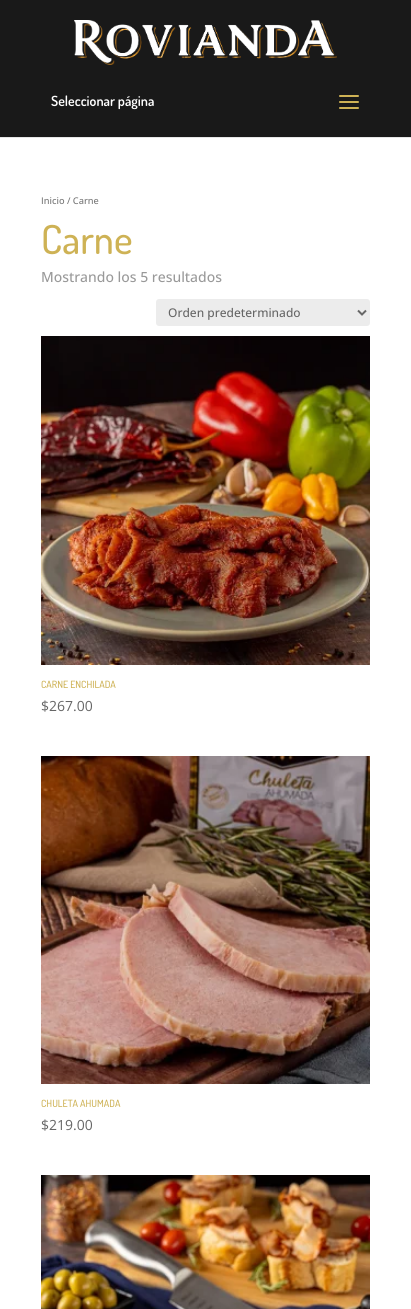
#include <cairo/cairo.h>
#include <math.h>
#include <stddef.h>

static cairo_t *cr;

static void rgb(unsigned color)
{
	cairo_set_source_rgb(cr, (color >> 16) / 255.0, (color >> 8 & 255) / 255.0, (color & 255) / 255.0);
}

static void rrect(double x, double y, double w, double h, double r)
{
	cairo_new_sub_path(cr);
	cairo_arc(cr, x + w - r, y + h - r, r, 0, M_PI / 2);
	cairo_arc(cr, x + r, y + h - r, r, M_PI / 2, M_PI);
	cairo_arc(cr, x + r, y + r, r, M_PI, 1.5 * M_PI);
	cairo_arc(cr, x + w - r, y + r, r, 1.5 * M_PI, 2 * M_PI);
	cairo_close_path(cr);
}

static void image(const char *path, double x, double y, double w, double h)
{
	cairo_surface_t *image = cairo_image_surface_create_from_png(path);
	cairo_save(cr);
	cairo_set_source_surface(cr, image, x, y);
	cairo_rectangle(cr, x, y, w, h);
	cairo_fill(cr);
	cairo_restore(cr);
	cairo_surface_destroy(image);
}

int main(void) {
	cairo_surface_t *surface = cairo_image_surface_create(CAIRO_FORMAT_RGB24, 411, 1309);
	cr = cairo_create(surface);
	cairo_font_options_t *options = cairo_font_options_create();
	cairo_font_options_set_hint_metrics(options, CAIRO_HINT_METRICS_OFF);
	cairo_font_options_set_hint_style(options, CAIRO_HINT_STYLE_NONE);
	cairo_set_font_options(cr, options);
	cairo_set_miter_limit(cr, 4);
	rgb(0xffffff);
	cairo_paint(cr);
	rgb(0xe6e6e6);
	cairo_rectangle(cr, 0, 137, 411, 1);
	cairo_fill(cr);
	rgb(0x191919);
	cairo_rectangle(cr, 0, 0, 411, 137);
	cairo_fill(cr);
	image("img/1.png", 74, 20, 263, 45);
	image("img/2.png", 339, 95, 20, 14);
	rgb(0xececec);
	rrect(156, 299, 214, 27, 3);
	cairo_fill(cr);
	cairo_new_path(cr);
	cairo_move_to(cr, 358, 310.5);
	cairo_line_to(cr, 362, 314.5);
	cairo_line_to(cr, 366, 310.5);
	rgb(0x666666);
	cairo_stroke(cr);
	image("img/3.png", 41, 336, 329, 329);
	image("img/4.png", 41, 756, 329, 328);
	image("img/5.png", 41, 1175, 329, 134);
	cairo_select_font_face(cr, "Dosis SemiBold", CAIRO_FONT_SLANT_NORMAL, CAIRO_FONT_WEIGHT_NORMAL);
	cairo_set_font_size(cr, 14);
	rgb(0xffffff);
	cairo_move_to(cr, 51, 106);
	cairo_show_text(cr, "Seleccionar página");
	cairo_select_font_face(cr, "Open Sans Medium", CAIRO_FONT_SLANT_NORMAL, CAIRO_FONT_WEIGHT_NORMAL);
	cairo_set_font_size(cr, 9.25);
	rgb(0x767676);
	cairo_move_to(cr, 41, 204);
	cairo_show_text(cr, "Inicio / Carne");
	cairo_select_font_face(cr, "Dosis Medium", CAIRO_FONT_SLANT_NORMAL, CAIRO_FONT_WEIGHT_NORMAL);
	cairo_set_font_size(cr, 40);
	rgb(0xceb255);
	cairo_move_to(cr, 41, 254);
	cairo_show_text(cr, "Carne");
	cairo_select_font_face(cr, "Open Sans Medium", CAIRO_FONT_SLANT_NORMAL, CAIRO_FONT_WEIGHT_NORMAL);
	cairo_set_font_size(cr, 14);
	rgb(0x999999);
	cairo_move_to(cr, 41, 282);
	cairo_show_text(cr, "Mostrando los 5 resultados");
	cairo_set_font_size(cr, 12);
	rgb(0x666666);
	cairo_move_to(cr, 168, 317);
	cairo_show_text(cr, "Orden predeterminado");
	cairo_select_font_face(cr, "Dosis Medium", CAIRO_FONT_SLANT_NORMAL, CAIRO_FONT_WEIGHT_NORMAL);
	cairo_set_font_size(cr, 10);
	rgb(0xceb255);
	cairo_move_to(cr, 41, 688);
	cairo_show_text(cr, "CARNE ENCHILADA");
	cairo_select_font_face(cr, "Open Sans", CAIRO_FONT_SLANT_NORMAL, CAIRO_FONT_WEIGHT_NORMAL);
	cairo_set_font_size(cr, 14);
	rgb(0x666666);
	cairo_move_to(cr, 41, 711);
	cairo_show_text(cr, "$267.00");
	cairo_select_font_face(cr, "Dosis Medium", CAIRO_FONT_SLANT_NORMAL, CAIRO_FONT_WEIGHT_NORMAL);
	cairo_set_font_size(cr, 10);
	rgb(0xceb255);
	cairo_move_to(cr, 41, 1107);
	cairo_show_text(cr, "CHULETA AHUMADA");
	cairo_select_font_face(cr, "Open Sans", CAIRO_FONT_SLANT_NORMAL, CAIRO_FONT_WEIGHT_NORMAL);
	cairo_set_font_size(cr, 14);
	rgb(0x666666);
	cairo_move_to(cr, 41, 1130);
	cairo_show_text(cr, "$219.00");
	cairo_surface_write_to_png(surface, "page.png");
	cairo_font_options_destroy(options);
	cairo_destroy(cr);
	cairo_surface_destroy(surface);
	return 0;
}
